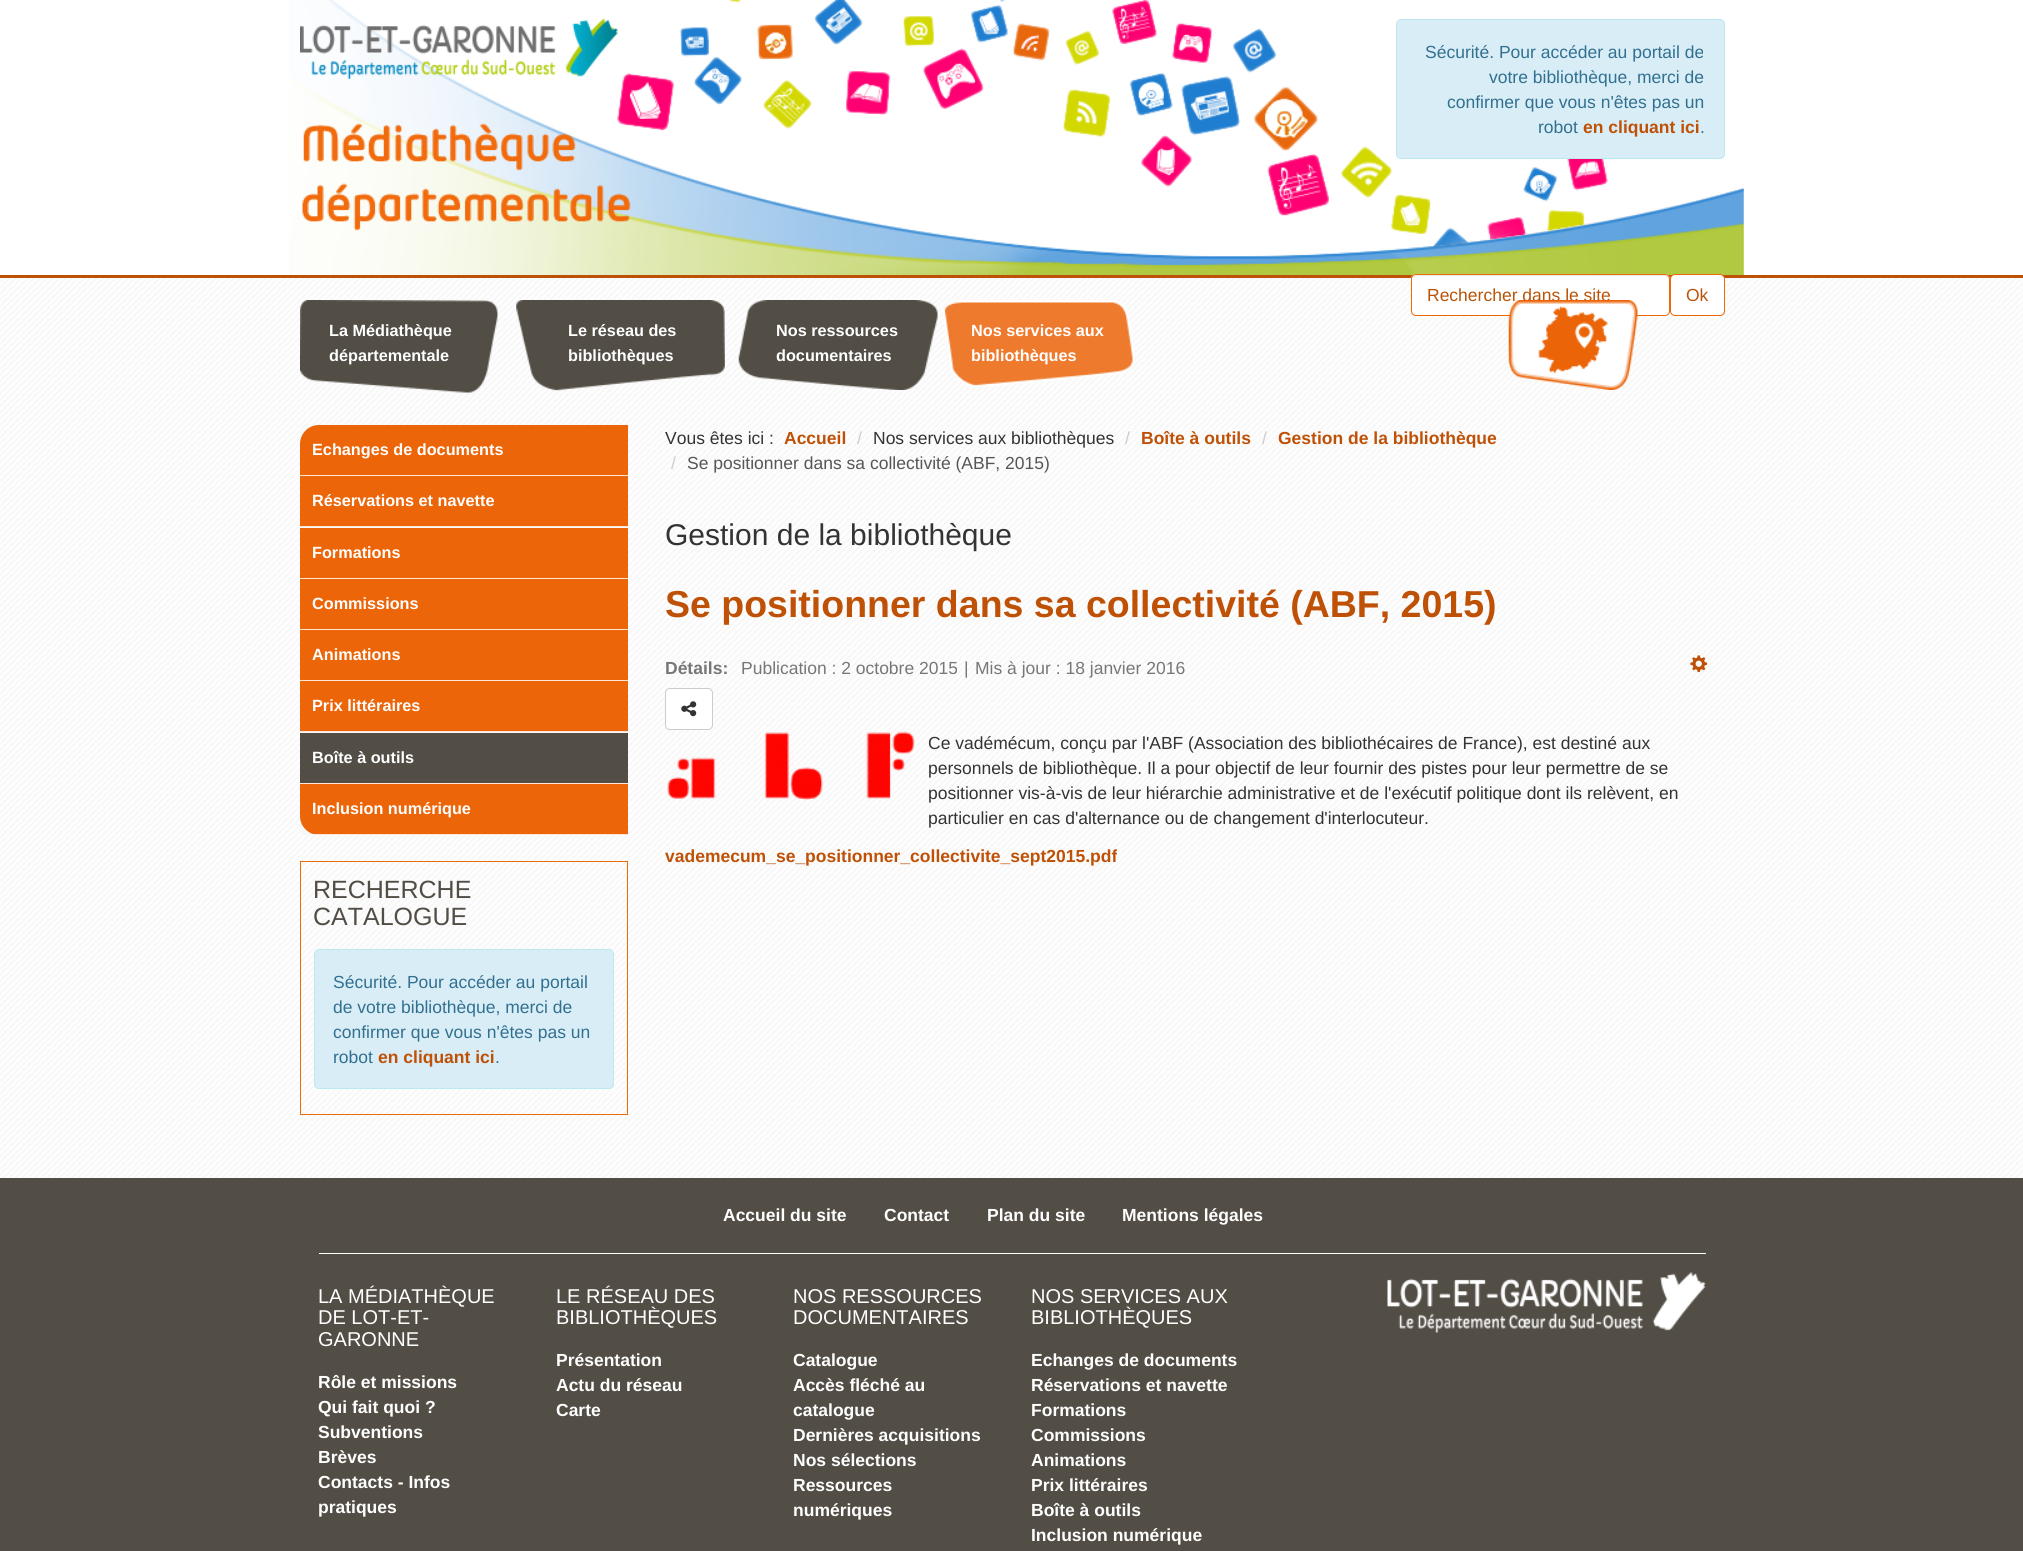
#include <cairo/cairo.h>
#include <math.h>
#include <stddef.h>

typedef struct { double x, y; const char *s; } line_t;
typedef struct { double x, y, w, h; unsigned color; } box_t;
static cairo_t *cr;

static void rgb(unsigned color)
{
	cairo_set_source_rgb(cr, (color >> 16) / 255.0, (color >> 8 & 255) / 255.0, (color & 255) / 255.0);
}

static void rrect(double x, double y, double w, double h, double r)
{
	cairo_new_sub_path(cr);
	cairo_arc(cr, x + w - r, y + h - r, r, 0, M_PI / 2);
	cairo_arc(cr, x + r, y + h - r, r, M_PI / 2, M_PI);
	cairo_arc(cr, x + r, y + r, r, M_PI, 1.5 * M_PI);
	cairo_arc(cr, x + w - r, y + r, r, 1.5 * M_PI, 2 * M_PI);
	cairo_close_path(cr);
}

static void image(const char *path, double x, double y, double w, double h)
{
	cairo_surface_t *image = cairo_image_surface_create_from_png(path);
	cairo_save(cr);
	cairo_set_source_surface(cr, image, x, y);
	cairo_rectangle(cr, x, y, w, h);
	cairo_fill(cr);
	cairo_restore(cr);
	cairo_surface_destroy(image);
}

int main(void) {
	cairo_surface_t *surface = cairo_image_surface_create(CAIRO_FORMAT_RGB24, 2023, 1551);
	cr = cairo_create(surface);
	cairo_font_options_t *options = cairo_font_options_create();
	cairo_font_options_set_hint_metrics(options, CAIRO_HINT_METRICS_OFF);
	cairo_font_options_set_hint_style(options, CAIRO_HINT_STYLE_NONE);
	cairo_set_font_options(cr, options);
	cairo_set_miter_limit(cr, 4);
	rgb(0xffffff);
	cairo_paint(cr);
	image("img/1.png", 0, 278, 2023, 900);
	image("img/2.png", 289, 0, 1455, 275);
	rgb(0xbf5107);
	cairo_rectangle(cr, 0, 275, 2023, 3);
	cairo_fill(cr);
	image("img/3.png", 300, 18, 318, 61);
	image("img/4.png", 302, 123, 329, 108);
	rgb(0xd9edf7);
	rrect(1396.5, 19.5, 328, 139, 4.5);
	cairo_fill_preserve(cr);
	rgb(0xbce8f1);
	cairo_set_line_width(cr, 1);
	cairo_stroke(cr);
	rgb(0xffffff);
	rrect(1411, 274, 259, 42, 5);
	cairo_fill(cr);
	rgb(0xececec);
	cairo_new_path(cr);
	cairo_move_to(cr, 1416, 276);
	cairo_line_to(cr, 1666, 276);
	cairo_line_to(cr, 1668, 278);
	cairo_line_to(cr, 1669, 280);
	cairo_line_to(cr, 1669, 279);
	cairo_curve_to(cr, 1669, 277, 1667, 275, 1665, 275);
	cairo_line_to(cr, 1417, 275);
	cairo_curve_to(cr, 1416, 275, 1414, 276, 1414, 277);
	cairo_close_path(cr);
	cairo_fill(cr);
	rrect(1411.5, 274.5, 258, 41, 4.5);
	rgb(0xeb6909);
	cairo_stroke(cr);
	rgb(0xffffff);
	rrect(1670.5, 274.5, 54, 41, 4.5);
	cairo_fill_preserve(cr);
	rgb(0xeb6909);
	cairo_stroke(cr);
	image("img/5.png", 300, 300, 198, 93);
	image("img/6.png", 516, 300, 209, 91);
	image("img/7.png", 738, 300, 200, 90);
	image("img/8.png", 943, 300, 192, 87);
	rgb(0xf8f8f8);
	rrect(300, 425, 328, 410, 5);
	cairo_fill(cr);
	rgb(0xffe6d6);
	cairo_rectangle(cr, 300, 475, 328, 1);
	cairo_fill(cr);
	rgb(0xec6509);
	cairo_new_path(cr);
	cairo_move_to(cr, 319, 425);
	cairo_line_to(cr, 628, 425);
	cairo_line_to(cr, 628, 475);
	cairo_line_to(cr, 300, 475);
	cairo_line_to(cr, 300, 444);
	cairo_curve_to(cr, 300, 433.5, 308.5, 425, 319, 425);
	cairo_close_path(cr);
	cairo_fill(cr);
	{
		static const box_t items[] = {
			{300, 526, 328, 1, 0xffe6d6},
			{300, 476, 328, 50, 0xec6509},
			{300, 578, 328, 1, 0xffe6d6},
			{300, 528, 328, 50, 0xec6509},
			{300, 629, 328, 1, 0xffe6d6},
			{300, 579, 328, 50, 0xec6509},
			{300, 680, 328, 1, 0xffe6d6},
			{300, 630, 328, 50, 0xec6509},
			{300, 731, 328, 1, 0xffe6d6},
			{300, 681, 328, 50, 0xec6509},
			{300, 783, 328, 1, 0xffe6d6},
			{300, 733, 328, 50, 0x524d45},
		};
		for (size_t i = 0; i < sizeof items / sizeof *items; i++) {
			rgb(items[i].color);
			cairo_rectangle(cr, items[i].x, items[i].y, items[i].w, items[i].h);
			cairo_fill(cr);
		}
	}
	cairo_save(cr);
	cairo_new_path(cr);
	cairo_move_to(cr, 319, 425);
	cairo_line_to(cr, 628, 425);
	cairo_line_to(cr, 628, 835);
	cairo_line_to(cr, 319, 835);
	cairo_curve_to(cr, 308.5, 835, 300, 826.5, 300, 816);
	cairo_line_to(cr, 300, 444);
	cairo_curve_to(cr, 300, 433.5, 308.5, 425, 319, 425);
	cairo_close_path(cr);
	cairo_clip(cr);
	rgb(0xffe6d6);
	cairo_rectangle(cr, 313, 834, 315, 1);
	cairo_fill(cr);
	rgb(0xec6509);
	cairo_rectangle(cr, 300, 784, 328, 50);
	cairo_fill(cr);
	cairo_restore(cr);
	cairo_rectangle(cr, 300.5, 861.5, 327, 253);
	rgb(0xeb6909);
	cairo_stroke(cr);
	rgb(0xd9edf7);
	rrect(314.5, 949.5, 299, 139, 4.5);
	cairo_fill_preserve(cr);
	rgb(0xbce8f1);
	cairo_stroke(cr);
	image("img/10.png", 1690, 655, 18, 18);
	rgb(0xffffff);
	rrect(665.5, 688.5, 47, 41, 4.5);
	cairo_fill_preserve(cr);
	rgb(0xcccccc);
	cairo_stroke(cr);
	image("img/11.png", 681, 701, 16, 16);
	image("img/12.png", 667, 731, 248, 69);
	rgb(0x524d45);
	cairo_rectangle(cr, 0, 1178, 2023, 373);
	cairo_fill(cr);
	rgb(0xffffff);
	cairo_rectangle(cr, 319, 1253, 1387, 1);
	cairo_fill(cr);
	image("img/13.png", 1387, 1272, 319, 61);
	cairo_select_font_face(cr, "Liberation Sans", CAIRO_FONT_SLANT_NORMAL, CAIRO_FONT_WEIGHT_NORMAL);
	cairo_set_font_size(cr, 17.5);
	rgb(0x31708f);
	{
		static const line_t items[] = {
			{1425, 58, "Sécurité. Pour accéder au portail de"},
			{1489, 83, "votre bibliothèque, merci de"},
			{1447, 108, "confirmer que vous n'êtes pas un"},
			{1538, 133, "robot"},
		};
		for (size_t i = 0; i < sizeof items / sizeof *items; i++) {
			cairo_move_to(cr, items[i].x, items[i].y);
			cairo_show_text(cr, items[i].s);
		}
	}
	cairo_select_font_face(cr, "Liberation Sans", CAIRO_FONT_SLANT_NORMAL, CAIRO_FONT_WEIGHT_BOLD);
	rgb(0xbf5107);
	cairo_move_to(cr, 1583, 133);
	cairo_show_text(cr, "en cliquant ici");
	cairo_select_font_face(cr, "Liberation Sans", CAIRO_FONT_SLANT_NORMAL, CAIRO_FONT_WEIGHT_NORMAL);
	rgb(0x31708f);
	cairo_move_to(cr, 1700, 133);
	cairo_show_text(cr, ".");
	rgb(0xb95307);
	cairo_move_to(cr, 1427, 301);
	cairo_show_text(cr, "Rechercher dans le site");
	cairo_move_to(cr, 1686, 301);
	cairo_show_text(cr, "Ok");
	cairo_select_font_face(cr, "Liberation Sans", CAIRO_FONT_SLANT_NORMAL, CAIRO_FONT_WEIGHT_BOLD);
	cairo_set_font_size(cr, 16.25);
	rgb(0xffffff);
	{
		static const line_t items[] = {
			{329, 336, "La Médiathèque"},
			{329, 361, "départementale"},
			{568, 336, "Le réseau des"},
			{568, 361, "bibliothèques"},
			{776, 336, "Nos ressources"},
			{776, 361, "documentaires"},
			{971, 336, "Nos services aux"},
			{971, 361, "bibliothèques"},
		};
		for (size_t i = 0; i < sizeof items / sizeof *items; i++) {
			cairo_move_to(cr, items[i].x, items[i].y);
			cairo_show_text(cr, items[i].s);
		}
	}
	image("img/9.png", 1508, 300, 130, 90);
	{
		static const line_t items[] = {
			{312, 455, "Echanges de documents"},
			{312, 506, "Réservations et navette"},
			{312, 558, "Formations"},
			{312, 609, "Commissions"},
			{312, 660, "Animations"},
			{312, 711, "Prix littéraires"},
			{312, 763, "Boîte à outils"},
			{312, 814, "Inclusion numérique"},
		};
		for (size_t i = 0; i < sizeof items / sizeof *items; i++) {
			cairo_move_to(cr, items[i].x, items[i].y);
			cairo_show_text(cr, items[i].s);
		}
	}
	cairo_select_font_face(cr, "Liberation Sans", CAIRO_FONT_SLANT_NORMAL, CAIRO_FONT_WEIGHT_NORMAL);
	cairo_set_font_size(cr, 25);
	rgb(0x524d45);
	cairo_move_to(cr, 313, 898);
	cairo_show_text(cr, "RECHERCHE");
	cairo_move_to(cr, 313, 925);
	cairo_show_text(cr, "CATALOGUE");
	cairo_set_font_size(cr, 17.5);
	rgb(0x31708f);
	{
		static const line_t items[] = {
			{333, 988, "Sécurité. Pour accéder au portail"},
			{333, 1013, "de votre bibliothèque, merci de"},
			{333, 1038, "confirmer que vous n'êtes pas un"},
			{333, 1063, "robot"},
		};
		for (size_t i = 0; i < sizeof items / sizeof *items; i++) {
			cairo_move_to(cr, items[i].x, items[i].y);
			cairo_show_text(cr, items[i].s);
		}
	}
	cairo_select_font_face(cr, "Liberation Sans", CAIRO_FONT_SLANT_NORMAL, CAIRO_FONT_WEIGHT_BOLD);
	rgb(0xbf5107);
	cairo_move_to(cr, 378, 1063);
	cairo_show_text(cr, "en cliquant ici");
	cairo_select_font_face(cr, "Liberation Sans", CAIRO_FONT_SLANT_NORMAL, CAIRO_FONT_WEIGHT_NORMAL);
	rgb(0x31708f);
	cairo_move_to(cr, 495, 1063);
	cairo_show_text(cr, ".");
	cairo_select_font_face(cr, "Liberation Sans", CAIRO_FONT_SLANT_NORMAL, CAIRO_FONT_WEIGHT_BOLD);
	rgb(0xbf5107);
	cairo_move_to(cr, 784, 444);
	cairo_show_text(cr, "Accueil");
	cairo_select_font_face(cr, "Liberation Sans", CAIRO_FONT_SLANT_NORMAL, CAIRO_FONT_WEIGHT_NORMAL);
	rgb(0xcccccc);
	cairo_move_to(cr, 857, 444);
	cairo_show_text(cr, "/");
	rgb(0x333333);
	cairo_move_to(cr, 873, 444);
	cairo_show_text(cr, "Nos services aux bibliothèques");
	rgb(0xcccccc);
	cairo_move_to(cr, 1125, 444);
	cairo_show_text(cr, "/");
	cairo_select_font_face(cr, "Liberation Sans", CAIRO_FONT_SLANT_NORMAL, CAIRO_FONT_WEIGHT_BOLD);
	rgb(0xbf5107);
	cairo_move_to(cr, 1141, 444);
	cairo_show_text(cr, "Boîte à outils");
	cairo_select_font_face(cr, "Liberation Sans", CAIRO_FONT_SLANT_NORMAL, CAIRO_FONT_WEIGHT_NORMAL);
	rgb(0xcccccc);
	cairo_move_to(cr, 1262, 444);
	cairo_show_text(cr, "/");
	cairo_select_font_face(cr, "Liberation Sans", CAIRO_FONT_SLANT_NORMAL, CAIRO_FONT_WEIGHT_BOLD);
	rgb(0xbf5107);
	cairo_move_to(cr, 1278, 444);
	cairo_show_text(cr, "Gestion de la bibliothèque");
	cairo_select_font_face(cr, "Liberation Sans", CAIRO_FONT_SLANT_NORMAL, CAIRO_FONT_WEIGHT_NORMAL);
	rgb(0xcccccc);
	cairo_move_to(cr, 671, 469);
	cairo_show_text(cr, "/");
	rgb(0x565656);
	cairo_move_to(cr, 687, 469);
	cairo_show_text(cr, "Se positionner dans sa collectivité (ABF, 2015)");
	rgb(0x333333);
	cairo_move_to(cr, 665, 444);
	cairo_show_text(cr, "Vous êtes ici :");
	cairo_set_font_size(cr, 30);
	cairo_move_to(cr, 665, 545);
	cairo_show_text(cr, "Gestion de la bibliothèque");
	cairo_select_font_face(cr, "Liberation Sans", CAIRO_FONT_SLANT_NORMAL, CAIRO_FONT_WEIGHT_BOLD);
	cairo_set_font_size(cr, 37.5);
	rgb(0xbf5107);
	cairo_move_to(cr, 665, 617);
	cairo_show_text(cr, "Se positionner dans sa collectivité (ABF, 2015)");
	cairo_set_font_size(cr, 17.5);
	rgb(0x777777);
	cairo_move_to(cr, 665, 674);
	cairo_show_text(cr, "Détails:");
	cairo_select_font_face(cr, "Liberation Sans", CAIRO_FONT_SLANT_NORMAL, CAIRO_FONT_WEIGHT_NORMAL);
	{
		static const line_t items[] = {
			{741, 674, "Publication : 2 octobre 2015"},
			{964, 674, "|"},
			{975, 674, "Mis à jour : 18 janvier 2016"},
		};
		for (size_t i = 0; i < sizeof items / sizeof *items; i++) {
			cairo_move_to(cr, items[i].x, items[i].y);
			cairo_show_text(cr, items[i].s);
		}
	}
	rgb(0x333333);
	{
		static const line_t items[] = {
			{928, 749, "Ce vadémécum, conçu par l'ABF (Association des bibliothécaires de France), est destiné aux"},
			{928, 774, "personnels de bibliothèque. Il a pour objectif de leur fournir des pistes pour leur permettre de se"},
			{928, 799, "positionner vis-à-vis de leur hiérarchie administrative et de l'exécutif politique dont ils relèvent, en"},
			{928, 824, "particulier en cas d'alternance ou de changement d'interlocuteur."},
		};
		for (size_t i = 0; i < sizeof items / sizeof *items; i++) {
			cairo_move_to(cr, items[i].x, items[i].y);
			cairo_show_text(cr, items[i].s);
		}
	}
	cairo_select_font_face(cr, "Liberation Sans", CAIRO_FONT_SLANT_NORMAL, CAIRO_FONT_WEIGHT_BOLD);
	rgb(0xbf5107);
	cairo_move_to(cr, 665, 862);
	cairo_show_text(cr, "vademecum_se_positionner_collectivite_sept2015.pdf");
	rgb(0xffffff);
	{
		static const line_t items[] = {
			{723, 1221, "Accueil du site"},
			{884, 1221, "Contact"},
			{987, 1221, "Plan du site"},
			{1122, 1221, "Mentions légales"},
		};
		for (size_t i = 0; i < sizeof items / sizeof *items; i++) {
			cairo_move_to(cr, items[i].x, items[i].y);
			cairo_show_text(cr, items[i].s);
		}
	}
	cairo_select_font_face(cr, "Liberation Sans", CAIRO_FONT_SLANT_NORMAL, CAIRO_FONT_WEIGHT_NORMAL);
	cairo_set_font_size(cr, 20);
	{
		static const line_t items[] = {
			{318, 1303, "LA MÉDIATHÈQUE"},
			{318, 1324, "DE LOT-ET-"},
			{318, 1346, "GARONNE"},
		};
		for (size_t i = 0; i < sizeof items / sizeof *items; i++) {
			cairo_move_to(cr, items[i].x, items[i].y);
			cairo_show_text(cr, items[i].s);
		}
	}
	cairo_select_font_face(cr, "Liberation Sans", CAIRO_FONT_SLANT_NORMAL, CAIRO_FONT_WEIGHT_BOLD);
	cairo_set_font_size(cr, 17.5);
	{
		static const line_t items[] = {
			{318, 1388, "Rôle et missions"},
			{318, 1413, "Qui fait quoi ?"},
			{318, 1438, "Subventions"},
			{318, 1463, "Brèves"},
			{318, 1488, "Contacts - Infos"},
			{318, 1513, "pratiques"},
		};
		for (size_t i = 0; i < sizeof items / sizeof *items; i++) {
			cairo_move_to(cr, items[i].x, items[i].y);
			cairo_show_text(cr, items[i].s);
		}
	}
	cairo_select_font_face(cr, "Liberation Sans", CAIRO_FONT_SLANT_NORMAL, CAIRO_FONT_WEIGHT_NORMAL);
	cairo_set_font_size(cr, 20);
	cairo_move_to(cr, 556, 1303);
	cairo_show_text(cr, "LE RÉSEAU DES");
	cairo_move_to(cr, 556, 1324);
	cairo_show_text(cr, "BIBLIOTHÈQUES");
	cairo_select_font_face(cr, "Liberation Sans", CAIRO_FONT_SLANT_NORMAL, CAIRO_FONT_WEIGHT_BOLD);
	cairo_set_font_size(cr, 17.5);
	{
		static const line_t items[] = {
			{556, 1366, "Présentation"},
			{556, 1391, "Actu du réseau"},
			{556, 1416, "Carte"},
		};
		for (size_t i = 0; i < sizeof items / sizeof *items; i++) {
			cairo_move_to(cr, items[i].x, items[i].y);
			cairo_show_text(cr, items[i].s);
		}
	}
	cairo_select_font_face(cr, "Liberation Sans", CAIRO_FONT_SLANT_NORMAL, CAIRO_FONT_WEIGHT_NORMAL);
	cairo_set_font_size(cr, 20);
	cairo_move_to(cr, 793, 1303);
	cairo_show_text(cr, "NOS RESSOURCES");
	cairo_move_to(cr, 793, 1324);
	cairo_show_text(cr, "DOCUMENTAIRES");
	cairo_select_font_face(cr, "Liberation Sans", CAIRO_FONT_SLANT_NORMAL, CAIRO_FONT_WEIGHT_BOLD);
	cairo_set_font_size(cr, 17.5);
	{
		static const line_t items[] = {
			{793, 1366, "Catalogue"},
			{793, 1391, "Accès fléché au"},
			{793, 1416, "catalogue"},
			{793, 1441, "Dernières acquisitions"},
			{793, 1466, "Nos sélections"},
			{793, 1491, "Ressources"},
			{793, 1516, "numériques"},
		};
		for (size_t i = 0; i < sizeof items / sizeof *items; i++) {
			cairo_move_to(cr, items[i].x, items[i].y);
			cairo_show_text(cr, items[i].s);
		}
	}
	cairo_select_font_face(cr, "Liberation Sans", CAIRO_FONT_SLANT_NORMAL, CAIRO_FONT_WEIGHT_NORMAL);
	cairo_set_font_size(cr, 20);
	cairo_move_to(cr, 1031, 1303);
	cairo_show_text(cr, "NOS SERVICES AUX");
	cairo_move_to(cr, 1031, 1324);
	cairo_show_text(cr, "BIBLIOTHÈQUES");
	cairo_select_font_face(cr, "Liberation Sans", CAIRO_FONT_SLANT_NORMAL, CAIRO_FONT_WEIGHT_BOLD);
	cairo_set_font_size(cr, 17.5);
	{
		static const line_t items[] = {
			{1031, 1366, "Echanges de documents"},
			{1031, 1391, "Réservations et navette"},
			{1031, 1416, "Formations"},
			{1031, 1441, "Commissions"},
			{1031, 1466, "Animations"},
			{1031, 1491, "Prix littéraires"},
			{1031, 1516, "Boîte à outils"},
			{1031, 1541, "Inclusion numérique"},
		};
		for (size_t i = 0; i < sizeof items / sizeof *items; i++) {
			cairo_move_to(cr, items[i].x, items[i].y);
			cairo_show_text(cr, items[i].s);
		}
	}
	cairo_surface_write_to_png(surface, "page.png");
	cairo_font_options_destroy(options);
	cairo_destroy(cr);
	cairo_surface_destroy(surface);
	return 0;
}
